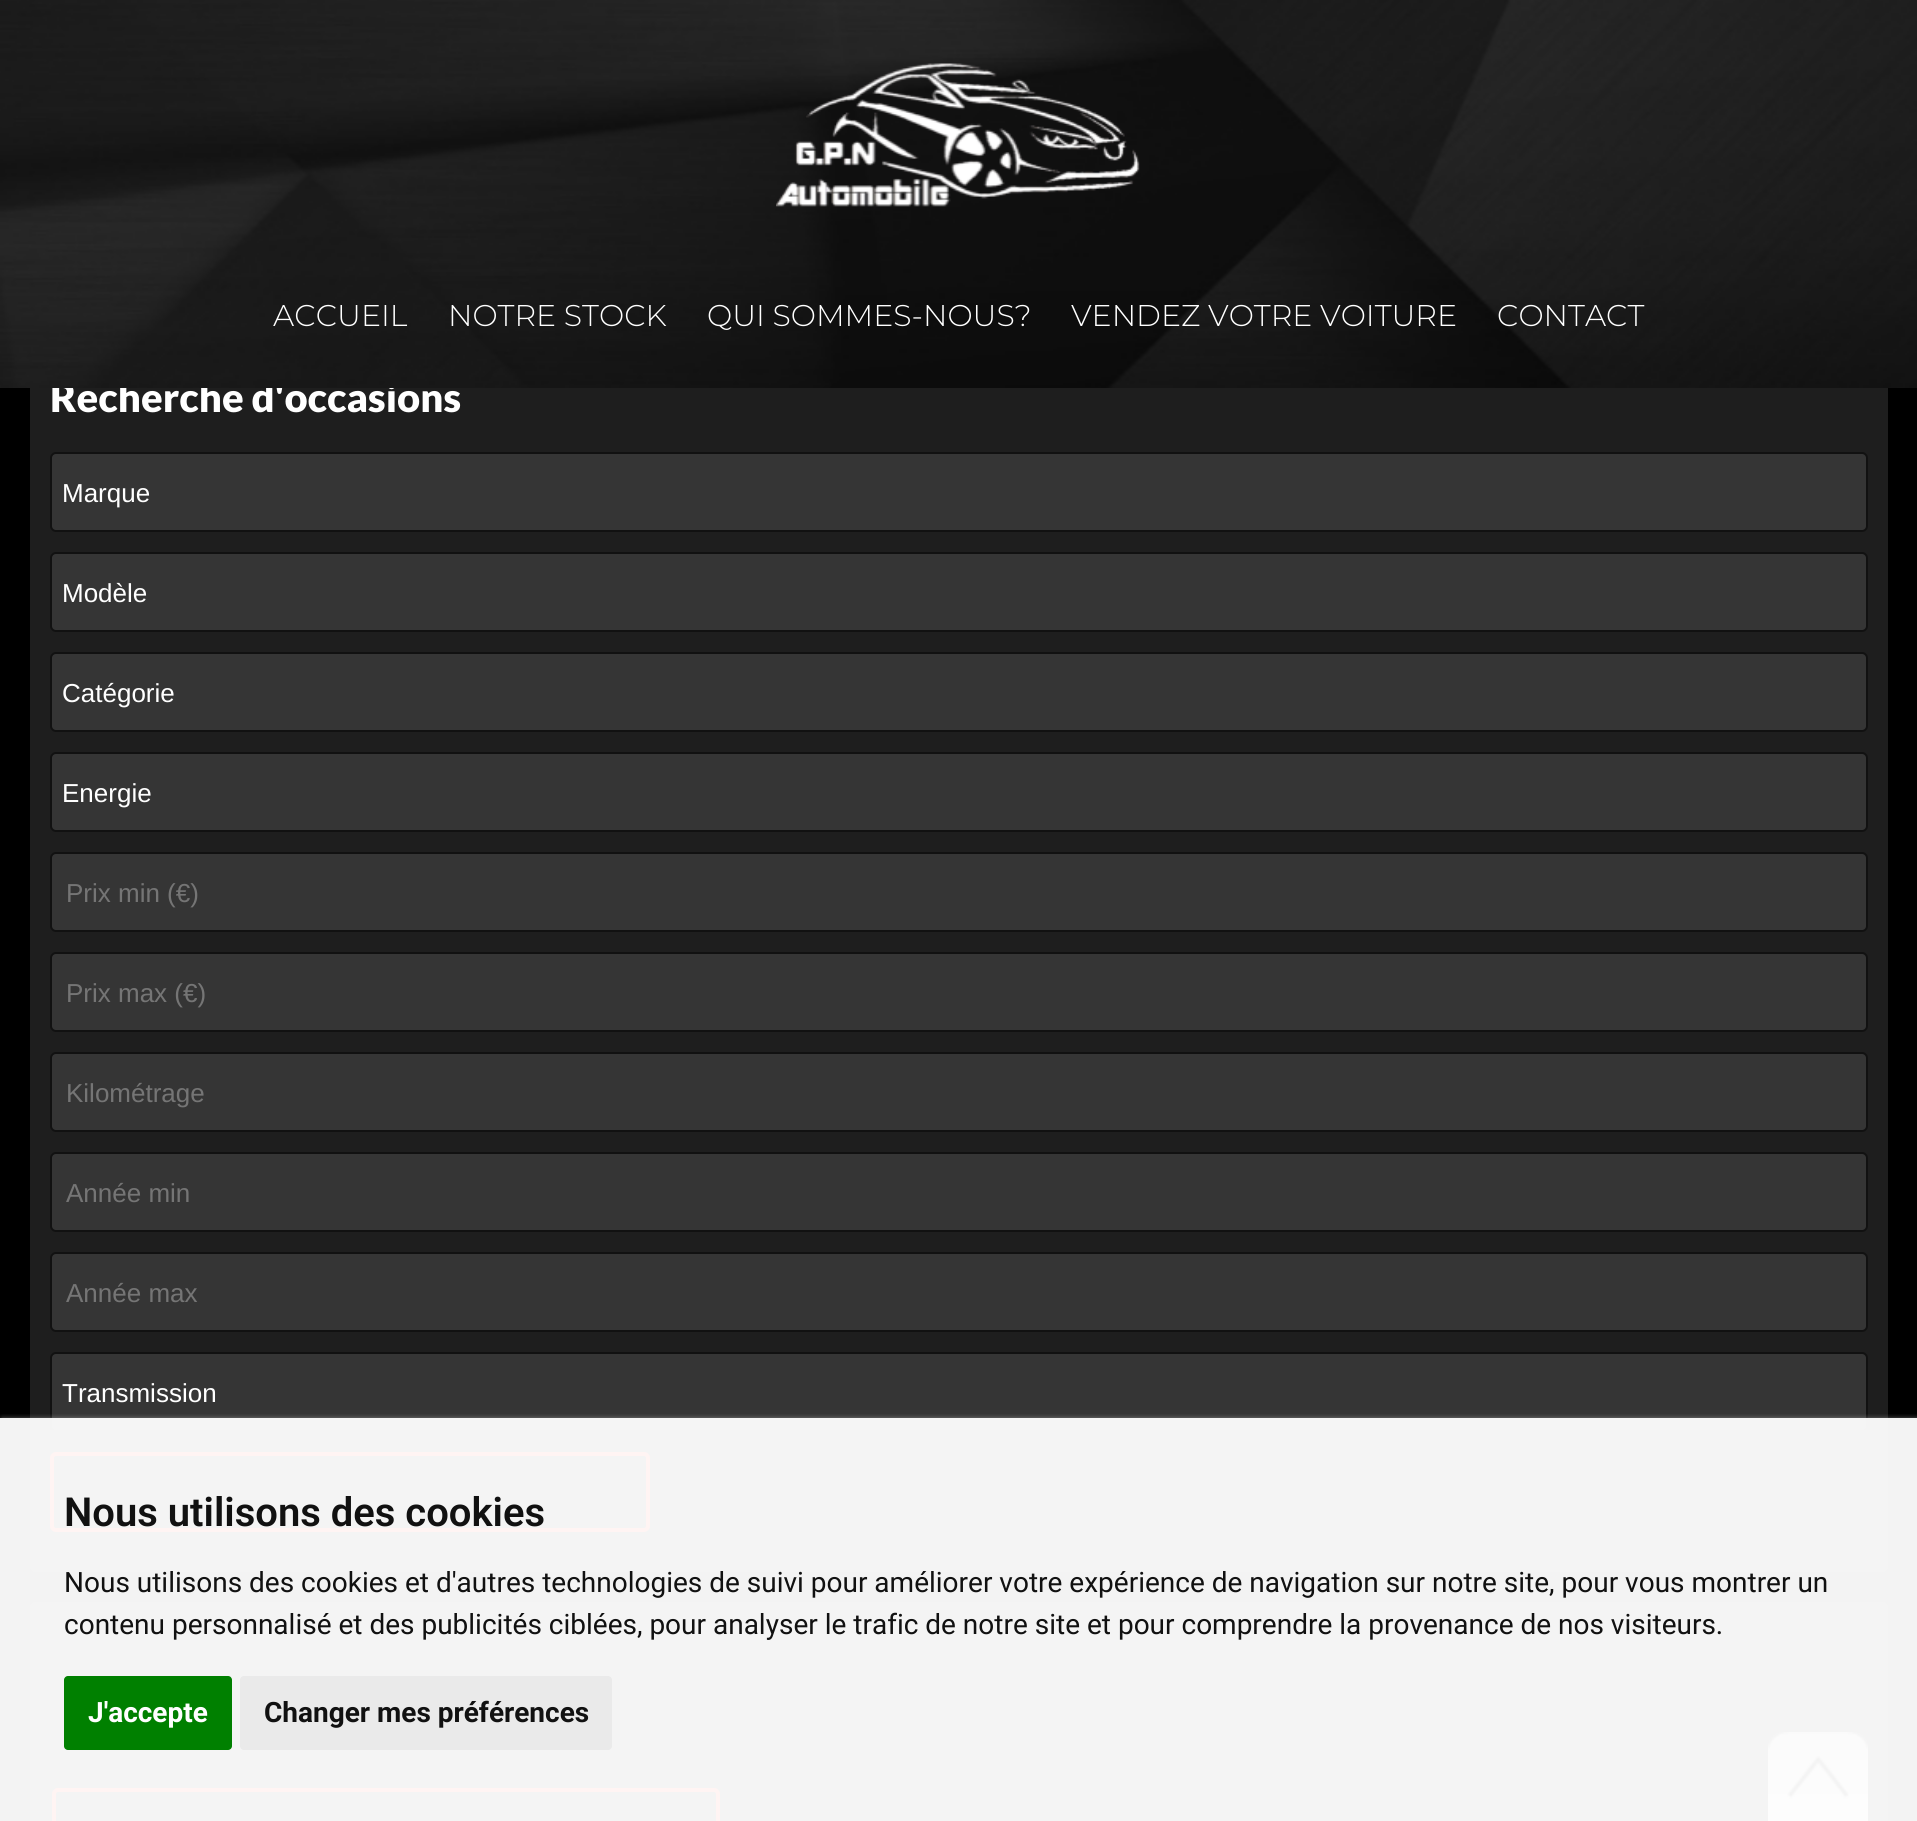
#include <cairo/cairo.h>
#include <math.h>
#include <stddef.h>

typedef struct { double x, y; const char *s; } line_t;
static cairo_t *cr;

static void rgb(unsigned color)
{
	cairo_set_source_rgb(cr, (color >> 16) / 255.0, (color >> 8 & 255) / 255.0, (color & 255) / 255.0);
}

static void rrect(double x, double y, double w, double h, double r)
{
	cairo_new_sub_path(cr);
	cairo_arc(cr, x + w - r, y + h - r, r, 0, M_PI / 2);
	cairo_arc(cr, x + r, y + h - r, r, M_PI / 2, M_PI);
	cairo_arc(cr, x + r, y + r, r, M_PI, 1.5 * M_PI);
	cairo_arc(cr, x + w - r, y + r, r, 1.5 * M_PI, 2 * M_PI);
	cairo_close_path(cr);
}

static void soft_shadow(double x, double y, double w, double h, double r, double blur, double alpha)
{
	cairo_push_group_with_content(cr, CAIRO_CONTENT_ALPHA);
	cairo_set_operator(cr, CAIRO_OPERATOR_SOURCE);
	for (int i = 15; i >= -15 && fmin(w, h) + blur * i / 3 > 0; i -= 2) {
		double e = blur * i / 6;
		cairo_set_source_rgba(cr, 0, 0, 0, alpha * erfc((i - 1) / 8.5) / 2);
		rrect(x - e, y - e, w + 2 * e, h + 2 * e, fmax(0, fmin(r + e + blur * .6, fmin(w, h) / 2 + e)));
		cairo_fill(cr);
	}
	cairo_pattern_t *soft = cairo_pop_group(cr);
	cairo_mask(cr, soft);
	cairo_pattern_destroy(soft);
}

static void image(const char *path, double x, double y, double w, double h)
{
	cairo_surface_t *image = cairo_image_surface_create_from_png(path);
	cairo_save(cr);
	cairo_set_source_surface(cr, image, x, y);
	cairo_rectangle(cr, x, y, w, h);
	cairo_fill(cr);
	cairo_restore(cr);
	cairo_surface_destroy(image);
}

int main(void) {
	cairo_surface_t *surface = cairo_image_surface_create(CAIRO_FORMAT_RGB24, 1917, 1821);
	cr = cairo_create(surface);
	cairo_font_options_t *options = cairo_font_options_create();
	cairo_font_options_set_hint_metrics(options, CAIRO_HINT_METRICS_OFF);
	cairo_font_options_set_hint_style(options, CAIRO_HINT_STYLE_NONE);
	cairo_set_font_options(cr, options);
	cairo_set_miter_limit(cr, 4);
	rgb(0x000000);
	cairo_paint(cr);
	rgb(0x1e1e1e);
	rrect(30, 352, 1858, 1220, 6);
	cairo_fill(cr);
	rgb(0x353535);
	rrect(51, 453, 1816, 78, 5);
	cairo_fill_preserve(cr);
	rgb(0x111111);
	cairo_stroke(cr);
	rgb(0x353535);
	rrect(51, 553, 1816, 78, 5);
	cairo_fill_preserve(cr);
	rgb(0x111111);
	cairo_stroke(cr);
	rgb(0x353535);
	rrect(51, 653, 1816, 78, 5);
	cairo_fill_preserve(cr);
	rgb(0x111111);
	cairo_stroke(cr);
	rgb(0x353535);
	rrect(51, 753, 1816, 78, 5);
	cairo_fill_preserve(cr);
	rgb(0x111111);
	cairo_stroke(cr);
	rgb(0x353535);
	rrect(51, 853, 1816, 78, 5);
	cairo_fill_preserve(cr);
	rgb(0x111111);
	cairo_stroke(cr);
	rgb(0x353535);
	rrect(51, 953, 1816, 78, 5);
	cairo_fill_preserve(cr);
	rgb(0x111111);
	cairo_stroke(cr);
	rgb(0x353535);
	rrect(51, 1053, 1816, 78, 5);
	cairo_fill_preserve(cr);
	rgb(0x111111);
	cairo_stroke(cr);
	rgb(0x353535);
	rrect(51, 1153, 1816, 78, 5);
	cairo_fill_preserve(cr);
	rgb(0x111111);
	cairo_stroke(cr);
	rgb(0x353535);
	rrect(51, 1253, 1816, 78, 5);
	cairo_fill_preserve(cr);
	rgb(0x111111);
	cairo_stroke(cr);
	rgb(0x353535);
	rrect(51, 1353, 1816, 78, 5);
	cairo_fill_preserve(cr);
	rgb(0x111111);
	cairo_stroke(cr);
	rrect(52, 1454, 596, 76, 4);
	rgb(0xfa1100);
	cairo_set_line_width(cr, 4);
	cairo_stroke(cr);
	rgb(0x1e1e1e);
	rrect(31, 1603, 1856, 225, 5);
	cairo_fill_preserve(cr);
	cairo_set_line_width(cr, 2);
	cairo_stroke(cr);
	rrect(54, 1790, 664, 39, 4);
	rgb(0xfa1100);
	cairo_set_line_width(cr, 4);
	cairo_stroke(cr);
	image("img/3.png", 1768, 1732, 100, 89);
	cairo_save(cr);
	cairo_rectangle(cr, 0, 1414, 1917, 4);
	cairo_clip(cr);
	rgb(0xcccccc);
	soft_shadow(2, 1420, 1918, 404, 0, 3, 1);
	cairo_restore(cr);
	cairo_set_source_rgba(cr, 1, 1, 1, 0.95);
	cairo_rectangle(cr, 0, 1418, 1917, 403);
	cairo_fill(cr);
	rgb(0x008000);
	rrect(64, 1676, 168, 74, 4);
	cairo_fill(cr);
	rgb(0xeaeaea);
	rrect(240, 1676, 372, 74, 4);
	cairo_fill(cr);
	cairo_select_font_face(cr, "Lato Black", CAIRO_FONT_SLANT_NORMAL, CAIRO_FONT_WEIGHT_NORMAL);
	cairo_set_font_size(cr, 40);
	rgb(0xffffff);
	cairo_move_to(cr, 50, 412);
	cairo_show_text(cr, "Recherche d'occasions");
	image("img/1.png", 0, 0, 1917, 388);
	image("img/2.png", 776, 63, 364, 144);
	cairo_select_font_face(cr, "Montserrat Light", CAIRO_FONT_SLANT_NORMAL, CAIRO_FONT_WEIGHT_NORMAL);
	cairo_set_font_size(cr, 30);
	{
		static const line_t items[] = {
			{1497, 326, "CONTACT"},
			{1071, 326, "VENDEZ VOTRE VOITURE"},
			{707, 326, "QUI SOMMES-NOUS?"},
			{448, 326, "NOTRE STOCK"},
			{273, 326, "ACCUEIL"},
		};
		for (size_t i = 0; i < sizeof items / sizeof *items; i++) {
			cairo_move_to(cr, items[i].x, items[i].y);
			cairo_show_text(cr, items[i].s);
		}
	}
	cairo_select_font_face(cr, "Liberation Sans", CAIRO_FONT_SLANT_NORMAL, CAIRO_FONT_WEIGHT_NORMAL);
	cairo_set_font_size(cr, 26);
	{
		static const line_t items[] = {
			{62, 502, "Marque"},
			{62, 602, "Modèle"},
			{62, 702, "Catégorie"},
			{62, 802, "Energie"},
		};
		for (size_t i = 0; i < sizeof items / sizeof *items; i++) {
			cairo_move_to(cr, items[i].x, items[i].y);
			cairo_show_text(cr, items[i].s);
		}
	}
	rgb(0x757575);
	{
		static const line_t items[] = {
			{66, 902, "Prix min (€)"},
			{66, 1002, "Prix max (€)"},
			{66, 1102, "Kilométrage"},
			{66, 1202, "Année min"},
			{66, 1302, "Année max"},
		};
		for (size_t i = 0; i < sizeof items / sizeof *items; i++) {
			cairo_move_to(cr, items[i].x, items[i].y);
			cairo_show_text(cr, items[i].s);
		}
	}
	rgb(0xffffff);
	cairo_move_to(cr, 62, 1402);
	cairo_show_text(cr, "Transmission");
	cairo_select_font_face(cr, "Roboto SemiBold", CAIRO_FONT_SLANT_NORMAL, CAIRO_FONT_WEIGHT_NORMAL);
	cairo_set_font_size(cr, 40);
	rgb(0x111111);
	cairo_move_to(cr, 64, 1526);
	cairo_show_text(cr, "Nous utilisons des cookies");
	cairo_select_font_face(cr, "Roboto", CAIRO_FONT_SLANT_NORMAL, CAIRO_FONT_WEIGHT_NORMAL);
	cairo_set_font_size(cr, 28);
	cairo_move_to(cr, 64, 1592);
	cairo_show_text(cr, "Nous utilisons des cookies et d'autres technologies de suivi pour améliorer votre expérience de navigation sur notre site, pour vous montrer un");
	cairo_move_to(cr, 64, 1634);
	cairo_show_text(cr, "contenu personnalisé et des publicités ciblées, pour analyser le trafic de notre site et pour comprendre la provenance de nos visiteurs.");
	cairo_select_font_face(cr, "Roboto", CAIRO_FONT_SLANT_NORMAL, CAIRO_FONT_WEIGHT_BOLD);
	rgb(0xffffff);
	cairo_move_to(cr, 88, 1722);
	cairo_show_text(cr, "J'accepte");
	rgb(0x111111);
	cairo_move_to(cr, 264, 1722);
	cairo_show_text(cr, "Changer mes préférences");
	cairo_surface_write_to_png(surface, "page.png");
	cairo_font_options_destroy(options);
	cairo_destroy(cr);
	cairo_surface_destroy(surface);
	return 0;
}
